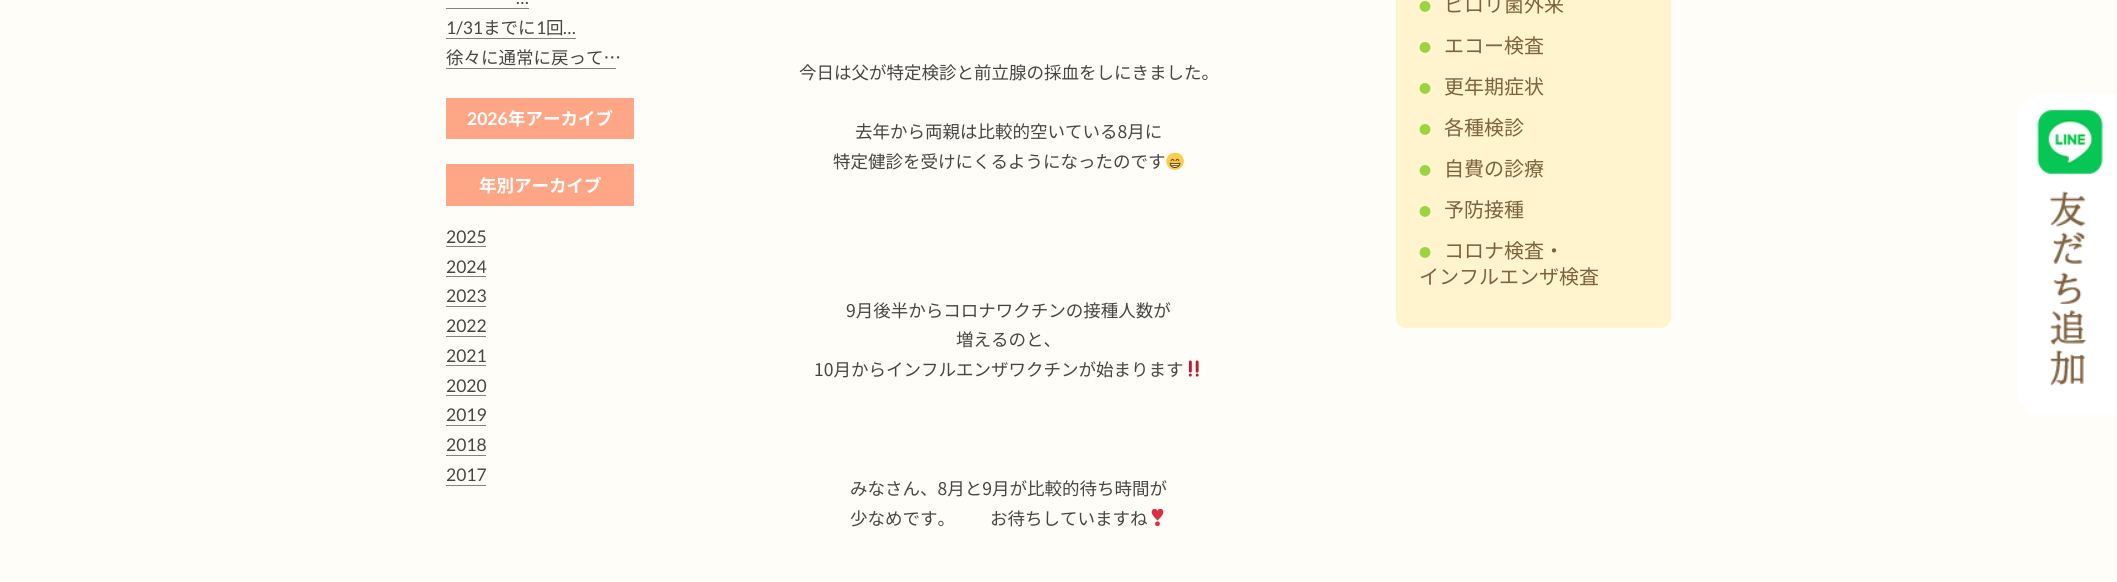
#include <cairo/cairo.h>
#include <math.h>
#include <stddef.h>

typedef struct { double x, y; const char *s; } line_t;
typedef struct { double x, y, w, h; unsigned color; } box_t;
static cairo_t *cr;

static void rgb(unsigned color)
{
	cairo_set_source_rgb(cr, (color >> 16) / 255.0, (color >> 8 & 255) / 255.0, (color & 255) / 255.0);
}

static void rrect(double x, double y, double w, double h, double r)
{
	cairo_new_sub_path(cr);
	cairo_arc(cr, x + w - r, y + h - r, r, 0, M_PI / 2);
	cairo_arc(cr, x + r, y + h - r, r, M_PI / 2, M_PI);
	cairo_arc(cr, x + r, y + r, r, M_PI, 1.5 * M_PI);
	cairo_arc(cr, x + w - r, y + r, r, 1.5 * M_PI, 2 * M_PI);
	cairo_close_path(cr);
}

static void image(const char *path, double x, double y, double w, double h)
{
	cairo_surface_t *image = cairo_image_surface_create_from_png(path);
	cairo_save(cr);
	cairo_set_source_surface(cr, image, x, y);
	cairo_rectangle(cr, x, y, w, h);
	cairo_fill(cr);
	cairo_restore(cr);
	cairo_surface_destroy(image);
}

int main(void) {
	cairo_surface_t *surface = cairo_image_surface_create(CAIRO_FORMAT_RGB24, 2117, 582);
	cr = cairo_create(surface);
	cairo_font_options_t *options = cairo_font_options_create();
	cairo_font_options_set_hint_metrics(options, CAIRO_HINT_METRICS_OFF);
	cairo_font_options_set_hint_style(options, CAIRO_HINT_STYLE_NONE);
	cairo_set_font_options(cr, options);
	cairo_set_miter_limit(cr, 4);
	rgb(0xfffdf8);
	cairo_paint(cr);
	{
		static const box_t items[] = {
			{446, 8, 83, 1, 0x828280},
			{446, 38, 130, 1, 0x828280},
			{446, 68, 170, 1, 0x828280},
			{446, 98, 188, 41, 0xffa687},
			{446, 164, 188, 42, 0xffa687},
			{446, 246, 40, 1, 0x828280},
			{446, 276, 40, 1, 0x828280},
			{446, 306, 40, 1, 0x828280},
			{446, 336, 40, 1, 0x828280},
			{446, 365, 40, 1, 0x828280},
			{446, 395, 40, 1, 0x828280},
			{446, 425, 40, 1, 0x828280},
			{446, 455, 40, 1, 0x828280},
			{446, 485, 40, 1, 0x828280},
		};
		for (size_t i = 0; i < sizeof items / sizeof *items; i++) {
			rgb(items[i].color);
			cairo_rectangle(cr, items[i].x, items[i].y, items[i].w, items[i].h);
			cairo_fill(cr);
		}
	}
	image("img/1.png", 1166, 153, 18, 17);
	image("img/2.png", 1188, 360, 11, 17);
	image("img/3.png", 1151, 509, 13, 17);
	rgb(0xfff4cd);
	rrect(1396, -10, 275, 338, 10);
	cairo_fill(cr);
	image("img/4.png", 2018, 94, 99, 321);
	cairo_select_font_face(cr, "Lato", CAIRO_FONT_SLANT_NORMAL, CAIRO_FONT_WEIGHT_NORMAL);
	cairo_set_font_size(cr, 17.5);
	rgb(0x464646);
	cairo_move_to(cr, 516, 4);
	cairo_show_text(cr, "…");
	cairo_move_to(cr, 446, 34);
	cairo_show_text(cr, "1/31");
	cairo_select_font_face(cr, "Noto Sans JP", CAIRO_FONT_SLANT_NORMAL, CAIRO_FONT_WEIGHT_NORMAL);
	cairo_move_to(cr, 483, 34);
	cairo_show_text(cr, "までに");
	cairo_select_font_face(cr, "Lato", CAIRO_FONT_SLANT_NORMAL, CAIRO_FONT_WEIGHT_NORMAL);
	cairo_move_to(cr, 536, 34);
	cairo_show_text(cr, "1");
	cairo_select_font_face(cr, "Noto Sans JP", CAIRO_FONT_SLANT_NORMAL, CAIRO_FONT_WEIGHT_NORMAL);
	cairo_move_to(cr, 546, 34);
	cairo_show_text(cr, "回");
	cairo_select_font_face(cr, "Lato", CAIRO_FONT_SLANT_NORMAL, CAIRO_FONT_WEIGHT_NORMAL);
	cairo_move_to(cr, 563, 34);
	cairo_show_text(cr, "…");
	cairo_select_font_face(cr, "Noto Sans JP", CAIRO_FONT_SLANT_NORMAL, CAIRO_FONT_WEIGHT_NORMAL);
	cairo_move_to(cr, 446, 64);
	cairo_show_text(cr, "徐々に通常に戻って…");
	cairo_select_font_face(cr, "Lato", CAIRO_FONT_SLANT_NORMAL, CAIRO_FONT_WEIGHT_BOLD);
	rgb(0xffffff);
	cairo_move_to(cr, 467, 125);
	cairo_show_text(cr, "2026");
	cairo_select_font_face(cr, "Noto Sans JP", CAIRO_FONT_SLANT_NORMAL, CAIRO_FONT_WEIGHT_BOLD);
	cairo_move_to(cr, 508, 125);
	cairo_show_text(cr, "年アーカイブ");
	cairo_move_to(cr, 479, 192);
	cairo_show_text(cr, "年別アーカイブ");
	cairo_select_font_face(cr, "Lato", CAIRO_FONT_SLANT_NORMAL, CAIRO_FONT_WEIGHT_NORMAL);
	rgb(0x464646);
	{
		static const line_t items[] = {
			{446, 243, "2025"},
			{446, 273, "2024"},
			{446, 302, "2023"},
			{446, 332, "2022"},
			{446, 362, "2021"},
			{446, 392, "2020"},
			{446, 421, "2019"},
			{446, 451, "2018"},
			{446, 481, "2017"},
		};
		for (size_t i = 0; i < sizeof items / sizeof *items; i++) {
			cairo_move_to(cr, items[i].x, items[i].y);
			cairo_show_text(cr, items[i].s);
		}
	}
	cairo_select_font_face(cr, "Noto Sans JP", CAIRO_FONT_SLANT_NORMAL, CAIRO_FONT_WEIGHT_NORMAL);
	{
		static const line_t items[] = {
			{799, 79, "今日は父が特定検診と前立腺の採血をしにきました。"},
			{855, 138, "去年から両親は比較的空いている8月に"},
			{833, 168, "特定健診を受けにくるようになったのです"},
			{846, 317, "9月後半からコロナワクチンの接種人数が"},
			{956, 346, "増えるのと、"},
			{814, 376, "10月からインフルエンザワクチンが始まります"},
			{850, 495, "みなさん、8月と9月が比較的待ち時間が"},
			{850, 525, "少なめです。　　お待ちしていますね"},
		};
		for (size_t i = 0; i < sizeof items / sizeof *items; i++) {
			cairo_move_to(cr, items[i].x, items[i].y);
			cairo_show_text(cr, items[i].s);
		}
	}
	cairo_set_font_size(cr, 12);
	rgb(0x9ad541);
	cairo_move_to(cr, 1419, 11);
	cairo_show_text(cr, "●");
	cairo_set_font_size(cr, 20);
	rgb(0x7f623e);
	cairo_move_to(cr, 1444, 12);
	cairo_show_text(cr, "ピロリ菌外来");
	cairo_set_font_size(cr, 12);
	rgb(0x9ad541);
	cairo_move_to(cr, 1419, 52);
	cairo_show_text(cr, "●");
	cairo_set_font_size(cr, 20);
	rgb(0x7f623e);
	cairo_move_to(cr, 1444, 53);
	cairo_show_text(cr, "エコー検査");
	cairo_set_font_size(cr, 12);
	rgb(0x9ad541);
	cairo_move_to(cr, 1419, 93);
	cairo_show_text(cr, "●");
	cairo_set_font_size(cr, 20);
	rgb(0x7f623e);
	cairo_move_to(cr, 1444, 94);
	cairo_show_text(cr, "更年期症状");
	cairo_set_font_size(cr, 12);
	rgb(0x9ad541);
	cairo_move_to(cr, 1419, 134);
	cairo_show_text(cr, "●");
	cairo_set_font_size(cr, 20);
	rgb(0x7f623e);
	cairo_move_to(cr, 1444, 135);
	cairo_show_text(cr, "各種検診");
	cairo_set_font_size(cr, 12);
	rgb(0x9ad541);
	cairo_move_to(cr, 1419, 175);
	cairo_show_text(cr, "●");
	cairo_set_font_size(cr, 20);
	rgb(0x7f623e);
	cairo_move_to(cr, 1444, 176);
	cairo_show_text(cr, "自費の診療");
	cairo_set_font_size(cr, 12);
	rgb(0x9ad541);
	cairo_move_to(cr, 1419, 216);
	cairo_show_text(cr, "●");
	cairo_set_font_size(cr, 20);
	rgb(0x7f623e);
	cairo_move_to(cr, 1444, 217);
	cairo_show_text(cr, "予防接種");
	cairo_set_font_size(cr, 12);
	rgb(0x9ad541);
	cairo_move_to(cr, 1419, 257);
	cairo_show_text(cr, "●");
	cairo_set_font_size(cr, 20);
	rgb(0x7f623e);
	cairo_move_to(cr, 1444, 258);
	cairo_show_text(cr, "コロナ検査・");
	cairo_move_to(cr, 1419, 284);
	cairo_show_text(cr, "インフルエンザ検査");
	cairo_surface_write_to_png(surface, "page.png");
	cairo_font_options_destroy(options);
	cairo_destroy(cr);
	cairo_surface_destroy(surface);
	return 0;
}
